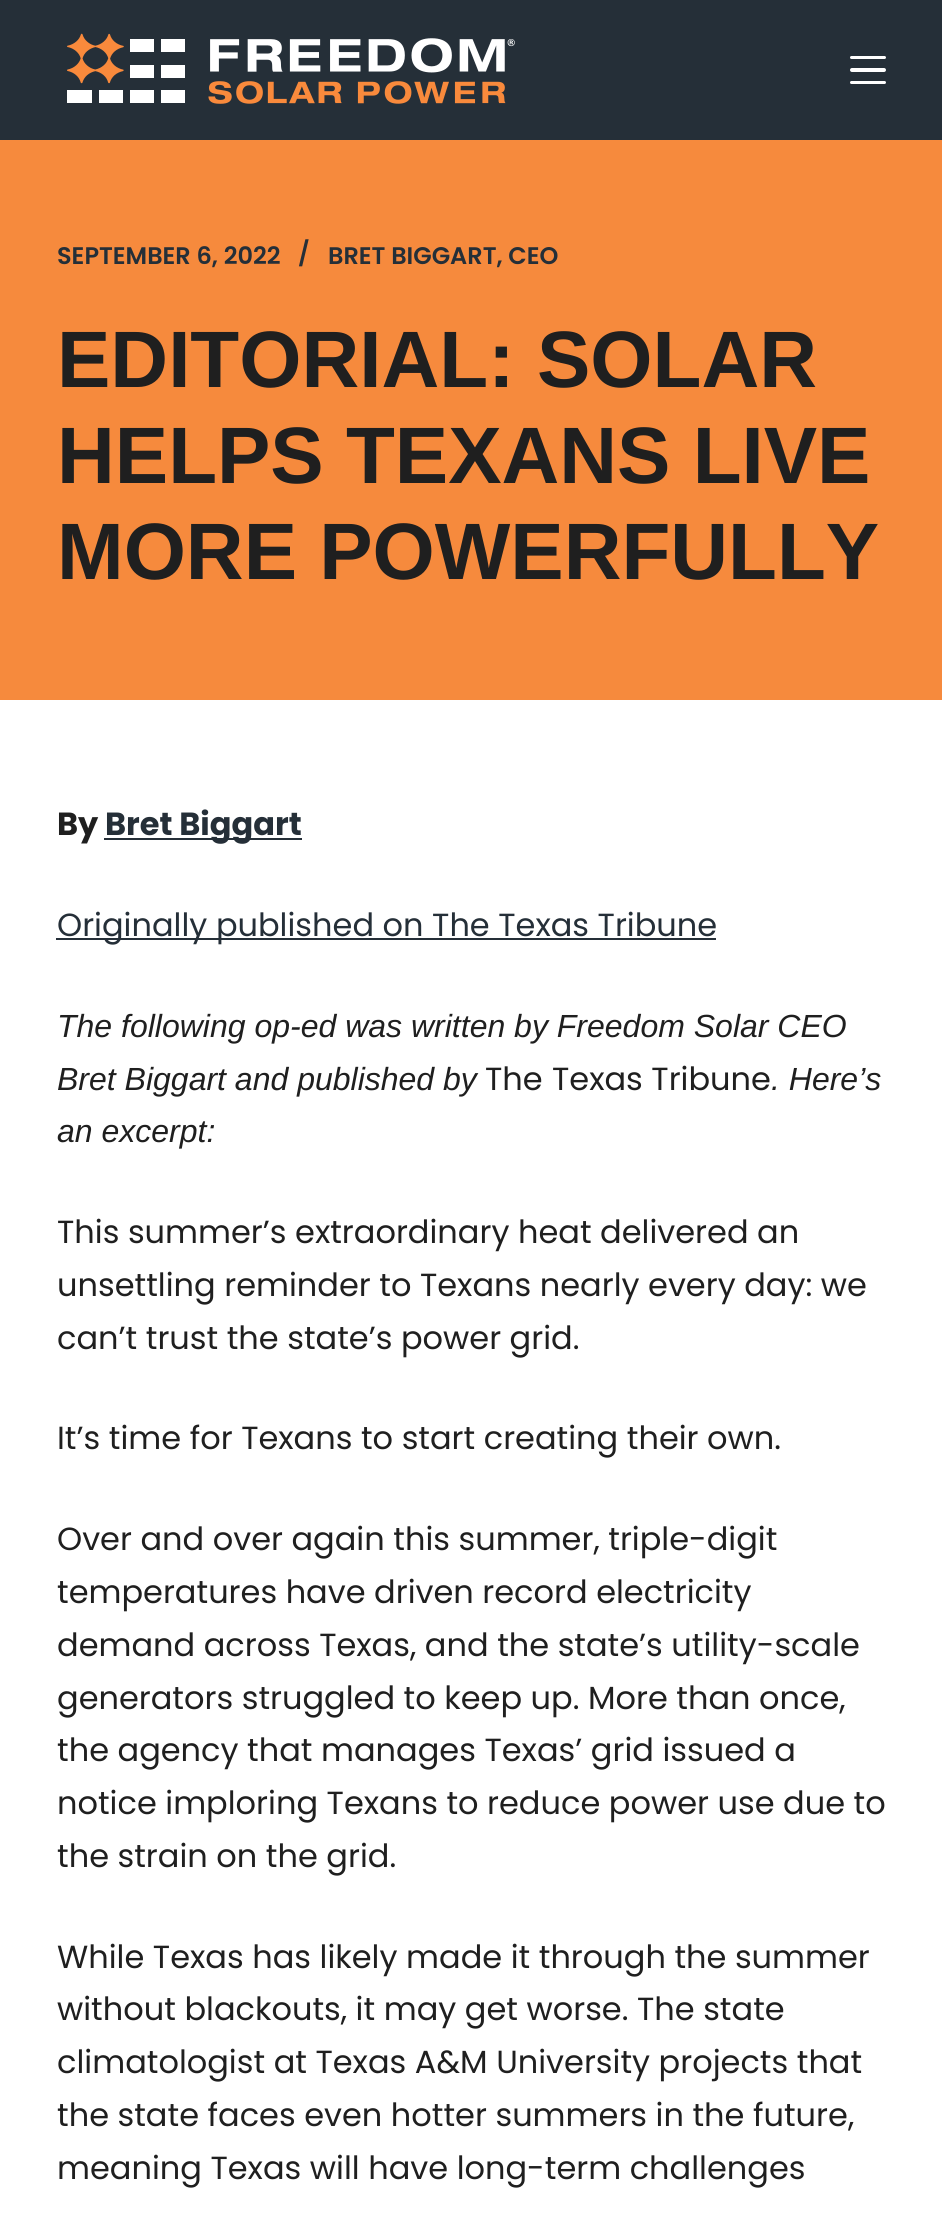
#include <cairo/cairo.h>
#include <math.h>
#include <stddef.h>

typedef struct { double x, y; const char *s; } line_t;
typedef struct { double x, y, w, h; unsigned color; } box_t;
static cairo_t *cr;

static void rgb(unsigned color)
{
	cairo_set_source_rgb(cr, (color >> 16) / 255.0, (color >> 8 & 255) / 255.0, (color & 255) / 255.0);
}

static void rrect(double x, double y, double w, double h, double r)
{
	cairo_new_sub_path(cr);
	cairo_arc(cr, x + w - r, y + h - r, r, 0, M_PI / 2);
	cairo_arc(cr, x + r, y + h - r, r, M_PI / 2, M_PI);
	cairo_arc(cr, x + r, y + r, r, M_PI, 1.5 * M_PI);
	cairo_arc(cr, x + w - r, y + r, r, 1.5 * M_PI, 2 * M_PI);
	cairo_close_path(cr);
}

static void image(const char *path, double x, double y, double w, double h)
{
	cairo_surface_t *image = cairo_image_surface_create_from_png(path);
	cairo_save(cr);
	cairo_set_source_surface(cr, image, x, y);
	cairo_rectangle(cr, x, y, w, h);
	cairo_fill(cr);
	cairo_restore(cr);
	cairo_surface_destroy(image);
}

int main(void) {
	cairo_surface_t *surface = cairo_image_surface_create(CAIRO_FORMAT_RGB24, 942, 2223);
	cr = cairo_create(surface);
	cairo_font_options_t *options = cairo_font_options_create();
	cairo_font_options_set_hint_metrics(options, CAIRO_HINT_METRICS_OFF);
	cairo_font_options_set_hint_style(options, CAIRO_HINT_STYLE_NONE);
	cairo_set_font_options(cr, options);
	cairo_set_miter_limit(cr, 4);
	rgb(0xffffff);
	cairo_paint(cr);
	rgb(0x252f38);
	cairo_rectangle(cr, 0, 0, 942, 140);
	cairo_fill(cr);
	image("img/1.png", 67, 33, 448, 71);
	rgb(0xffffff);
	rrect(850, 56, 36, 3, 1.5);
	cairo_fill(cr);
	rrect(850, 68, 36, 4, 2);
	cairo_fill(cr);
	rrect(850, 81, 36, 3, 1.5);
	cairo_fill(cr);
	{
		static const box_t items[] = {
			{0, 140, 942, 560, 0xf68a3d},
			{104, 838, 198, 2, 0x252f38},
			{56, 938, 660, 2, 0x252f38},
		};
		for (size_t i = 0; i < sizeof items / sizeof *items; i++) {
			rgb(items[i].color);
			cairo_rectangle(cr, items[i].x, items[i].y, items[i].w, items[i].h);
			cairo_fill(cr);
		}
	}
	cairo_select_font_face(cr, "Poppins SemiBold", CAIRO_FONT_SLANT_NORMAL, CAIRO_FONT_WEIGHT_NORMAL);
	cairo_set_font_size(cr, 24);
	{
		static const line_t items[] = {
			{57, 264, "SEPTEMBER 6, 2022"},
			{298, 262, "/"},
			{328, 264, "BRET BIGGART, CEO"},
		};
		for (size_t i = 0; i < sizeof items / sizeof *items; i++) {
			cairo_move_to(cr, items[i].x, items[i].y);
			cairo_show_text(cr, items[i].s);
		}
	}
	cairo_select_font_face(cr, "Liberation Sans", CAIRO_FONT_SLANT_NORMAL, CAIRO_FONT_WEIGHT_BOLD);
	cairo_set_font_size(cr, 80);
	rgb(0x1f1f1f);
	{
		static const line_t items[] = {
			{57, 387, "EDITORIAL: SOLAR"},
			{57, 483, "HELPS TEXANS LIVE"},
			{57, 579, "MORE POWERFULLY"},
		};
		for (size_t i = 0; i < sizeof items / sizeof *items; i++) {
			cairo_move_to(cr, items[i].x, items[i].y);
			cairo_show_text(cr, items[i].s);
		}
	}
	cairo_select_font_face(cr, "Poppins", CAIRO_FONT_SLANT_NORMAL, CAIRO_FONT_WEIGHT_BOLD);
	cairo_set_font_size(cr, 32);
	cairo_move_to(cr, 57, 835);
	cairo_show_text(cr, "By");
	rgb(0x252f38);
	cairo_move_to(cr, 105, 835);
	cairo_show_text(cr, "Bret Biggart");
	cairo_select_font_face(cr, "Poppins", CAIRO_FONT_SLANT_NORMAL, CAIRO_FONT_WEIGHT_NORMAL);
	cairo_move_to(cr, 57, 936);
	cairo_show_text(cr, "Originally published on The Texas Tribune");
	cairo_select_font_face(cr, "Liberation Sans", CAIRO_FONT_SLANT_ITALIC, CAIRO_FONT_WEIGHT_NORMAL);
	rgb(0x1f1f1f);
	cairo_move_to(cr, 57, 1037);
	cairo_show_text(cr, "The following op-ed was written by Freedom Solar CEO");
	cairo_move_to(cr, 57, 1090);
	cairo_show_text(cr, "Bret Biggart and published by");
	cairo_select_font_face(cr, "Poppins", CAIRO_FONT_SLANT_NORMAL, CAIRO_FONT_WEIGHT_NORMAL);
	cairo_move_to(cr, 485, 1090);
	cairo_show_text(cr, "The");
	cairo_move_to(cr, 552, 1090);
	cairo_show_text(cr, "Texas Tribune");
	cairo_select_font_face(cr, "Liberation Sans", CAIRO_FONT_SLANT_ITALIC, CAIRO_FONT_WEIGHT_NORMAL);
	cairo_move_to(cr, 771, 1090);
	cairo_show_text(cr, ". Here’s");
	cairo_move_to(cr, 57, 1142);
	cairo_show_text(cr, "an excerpt:");
	cairo_select_font_face(cr, "Poppins", CAIRO_FONT_SLANT_NORMAL, CAIRO_FONT_WEIGHT_NORMAL);
	{
		static const line_t items[] = {
			{57, 1243, "This summer’s extraordinary heat delivered an"},
			{57, 1296, "unsettling reminder to Texans nearly every day: we"},
			{57, 1349, "can’t trust the state’s power grid."},
			{57, 1449, "It’s time for Texans to start creating their own."},
			{57, 1550, "Over and over again this summer, triple-digit"},
			{57, 1603, "temperatures have driven record electricity"},
			{57, 1656, "demand across Texas, and the state’s utility-scale"},
			{57, 1709, "generators struggled to keep up. More than once,"},
			{57, 1761, "the agency that manages Texas’ grid issued a"},
			{57, 1814, "notice imploring Texans to reduce power use due to"},
			{57, 1867, "the strain on the grid."},
			{57, 1968, "While Texas has likely made it through the summer"},
			{57, 2020, "without blackouts, it may get worse. The state"},
			{57, 2073, "climatologist at Texas A&M University projects that"},
			{57, 2126, "the state faces even hotter summers in the future,"},
			{57, 2179, "meaning Texas will have long-term challenges"},
		};
		for (size_t i = 0; i < sizeof items / sizeof *items; i++) {
			cairo_move_to(cr, items[i].x, items[i].y);
			cairo_show_text(cr, items[i].s);
		}
	}
	cairo_surface_write_to_png(surface, "page.png");
	cairo_font_options_destroy(options);
	cairo_destroy(cr);
	cairo_surface_destroy(surface);
	return 0;
}
